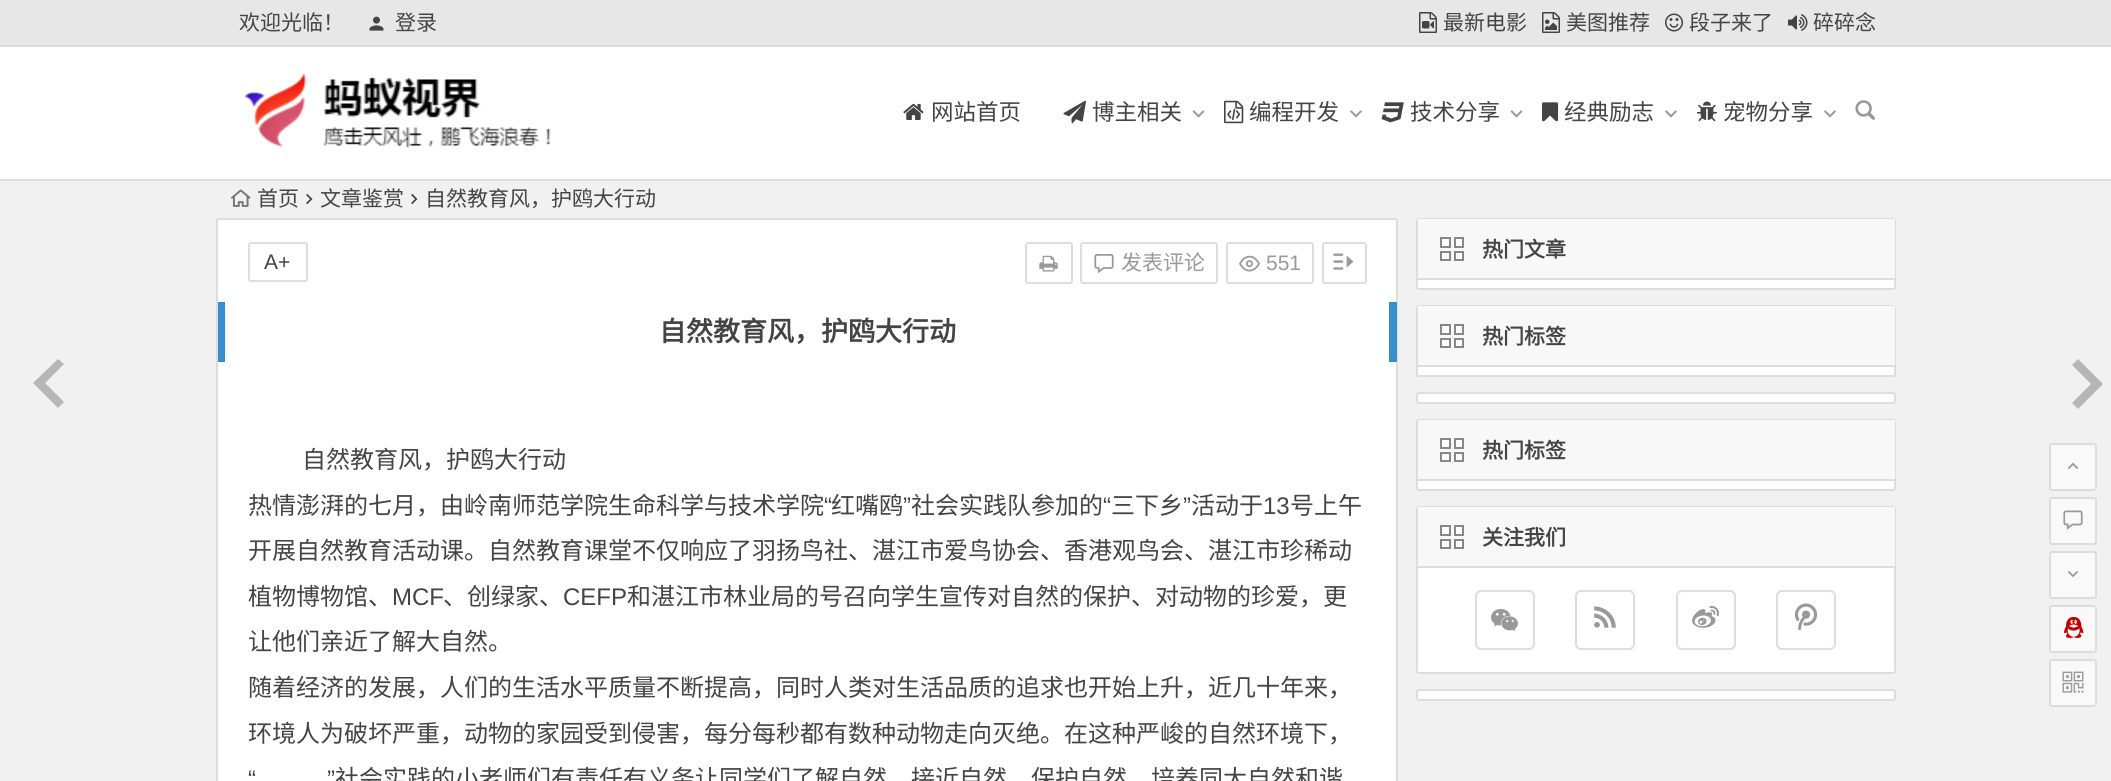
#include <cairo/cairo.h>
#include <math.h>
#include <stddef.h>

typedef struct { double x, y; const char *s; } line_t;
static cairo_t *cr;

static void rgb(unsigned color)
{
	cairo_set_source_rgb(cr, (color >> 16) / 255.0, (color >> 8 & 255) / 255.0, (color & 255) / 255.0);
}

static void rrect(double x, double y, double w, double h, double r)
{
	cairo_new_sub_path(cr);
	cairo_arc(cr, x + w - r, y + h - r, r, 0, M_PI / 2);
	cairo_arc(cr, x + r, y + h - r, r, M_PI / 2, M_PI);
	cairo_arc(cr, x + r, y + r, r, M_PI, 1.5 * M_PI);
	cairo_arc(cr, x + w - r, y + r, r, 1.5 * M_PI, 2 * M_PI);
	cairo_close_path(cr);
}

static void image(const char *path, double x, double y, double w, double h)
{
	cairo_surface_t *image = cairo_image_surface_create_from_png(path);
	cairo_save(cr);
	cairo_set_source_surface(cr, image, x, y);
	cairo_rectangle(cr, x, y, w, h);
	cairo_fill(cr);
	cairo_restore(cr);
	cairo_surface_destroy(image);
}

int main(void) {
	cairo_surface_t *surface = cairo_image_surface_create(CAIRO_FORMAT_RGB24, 2111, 781);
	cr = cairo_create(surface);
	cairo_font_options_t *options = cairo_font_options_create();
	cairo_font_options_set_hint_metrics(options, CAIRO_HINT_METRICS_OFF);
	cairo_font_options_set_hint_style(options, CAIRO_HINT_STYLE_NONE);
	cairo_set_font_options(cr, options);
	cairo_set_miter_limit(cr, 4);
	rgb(0xf1f1f1);
	cairo_paint(cr);
	rgb(0xe7e7e7);
	cairo_rectangle(cr, 0, 0, 2111, 45);
	cairo_fill(cr);
	rgb(0xdedede);
	cairo_rectangle(cr, 0, 45, 2111, 2);
	cairo_fill(cr);
	image("img/1.png", 369, 16, 15, 15);
	image("img/2.png", 1419, 12, 18, 21);
	image("img/3.png", 1542, 12, 18, 21);
	image("img/4.png", 1665, 13, 18, 19);
	image("img/5.png", 1788, 14, 20, 17);
	rgb(0xffffff);
	cairo_rectangle(cr, 0, 47, 2111, 132);
	cairo_fill(cr);
	rgb(0xdddddd);
	cairo_rectangle(cr, 0, 179, 2111, 2);
	cairo_fill(cr);
	image("img/6.png", 244, 73, 307, 75);
	image("img/7.png", 903, 103, 21, 17);
	image("img/8.png", 1063, 100, 23, 24);
	image("img/9.png", 1192, 110, 13, 8);
	image("img/10.png", 1224, 100, 20, 24);
	image("img/11.png", 1350, 110, 12, 8);
	image("img/12.png", 1381, 102, 23, 21);
	image("img/9.png", 1510, 110, 13, 8);
	image("img/13.png", 1542, 102, 17, 20);
	image("img/11.png", 1665, 110, 12, 8);
	image("img/14.png", 1696, 101, 21, 21);
	image("img/11.png", 1824, 110, 12, 8);
	image("img/15.png", 1855, 100, 20, 20);
	image("img/16.png", 231, 189, 20, 18);
	image("img/17.png", 306, 193, 7, 12);
	image("img/17.png", 411, 193, 7, 12);
	rgb(0xffffff);
	rrect(217, 219, 1180, 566, 2);
	cairo_fill_preserve(cr);
	rgb(0xdddddd);
	cairo_stroke(cr);
	rrect(249, 243, 58, 38, 2);
	cairo_stroke(cr);
	rrect(1026, 243, 46, 40, 2);
	cairo_stroke(cr);
	image("img/18.png", 1039, 255, 19, 17);
	rrect(1081, 243, 136, 40, 2);
	cairo_stroke(cr);
	image("img/19.png", 1094, 254, 20, 19);
	rrect(1227, 243, 86, 40, 2);
	cairo_stroke(cr);
	image("img/20.png", 1239, 255, 21, 17);
	rrect(1323, 243, 43, 40, 2);
	cairo_stroke(cr);
	image("img/21.png", 1333, 253, 21, 17);
	rgb(0x3690cf);
	cairo_rectangle(cr, 1389, 302, 8, 60);
	cairo_fill(cr);
	cairo_rectangle(cr, 218, 302, 7, 60);
	cairo_fill(cr);
	rgb(0xb6b6b6);
	cairo_new_path(cr);
	cairo_move_to(cr, 64, 402);
	cairo_line_to(cr, 45, 383);
	cairo_line_to(cr, 64, 364);
	cairo_line_to(cr, 58, 359);
	cairo_line_to(cr, 33, 383);
	cairo_line_to(cr, 58, 408);
	cairo_close_path(cr);
	cairo_fill(cr);
	cairo_new_path(cr);
	cairo_move_to(cr, 2072, 403);
	cairo_line_to(cr, 2091, 384);
	cairo_line_to(cr, 2072, 365);
	cairo_line_to(cr, 2078, 359);
	cairo_line_to(cr, 2103, 384);
	cairo_line_to(cr, 2078, 409);
	cairo_close_path(cr);
	cairo_fill(cr);
	rgb(0xffffff);
	rrect(1417, 219, 478, 70, 2);
	cairo_fill_preserve(cr);
	rgb(0xdddddd);
	cairo_stroke(cr);
	rgb(0xf8f8f8);
	cairo_rectangle(cr, 1418, 219, 477, 59);
	cairo_fill(cr);
	rgb(0xdddddd);
	cairo_rectangle(cr, 1418, 278, 477, 2);
	cairo_fill(cr);
	rgb(0xffffff);
	cairo_rectangle(cr, 1441, 238, 9, 9);
	cairo_fill_preserve(cr);
	rgb(0x888888);
	cairo_stroke(cr);
	rgb(0xffffff);
	cairo_rectangle(cr, 1455, 238, 8, 9);
	cairo_fill_preserve(cr);
	rgb(0x888888);
	cairo_stroke(cr);
	rgb(0xffffff);
	cairo_rectangle(cr, 1441, 252, 9, 8);
	cairo_fill_preserve(cr);
	rgb(0x888888);
	cairo_stroke(cr);
	rgb(0xffffff);
	cairo_rectangle(cr, 1455, 252, 8, 8);
	cairo_fill_preserve(cr);
	rgb(0x888888);
	cairo_stroke(cr);
	rgb(0xffffff);
	rrect(1417, 306, 478, 70, 2);
	cairo_fill_preserve(cr);
	rgb(0xdddddd);
	cairo_stroke(cr);
	rgb(0xf8f8f8);
	cairo_rectangle(cr, 1418, 306, 477, 59);
	cairo_fill(cr);
	rgb(0xdddddd);
	cairo_rectangle(cr, 1418, 365, 477, 2);
	cairo_fill(cr);
	rgb(0xffffff);
	cairo_rectangle(cr, 1441, 325, 9, 9);
	cairo_fill_preserve(cr);
	rgb(0x888888);
	cairo_stroke(cr);
	rgb(0xffffff);
	cairo_rectangle(cr, 1455, 325, 8, 9);
	cairo_fill_preserve(cr);
	rgb(0x888888);
	cairo_stroke(cr);
	rgb(0xffffff);
	cairo_rectangle(cr, 1441, 339, 9, 8);
	cairo_fill_preserve(cr);
	rgb(0x888888);
	cairo_stroke(cr);
	rgb(0xffffff);
	cairo_rectangle(cr, 1455, 339, 8, 8);
	cairo_fill_preserve(cr);
	rgb(0x888888);
	cairo_stroke(cr);
	rgb(0xffffff);
	rrect(1417, 393, 478, 10, 2);
	cairo_fill_preserve(cr);
	rgb(0xdddddd);
	cairo_stroke(cr);
	rgb(0xffffff);
	rrect(1417, 420, 478, 70, 2);
	cairo_fill_preserve(cr);
	rgb(0xdddddd);
	cairo_stroke(cr);
	rgb(0xf8f8f8);
	cairo_rectangle(cr, 1418, 420, 477, 59);
	cairo_fill(cr);
	rgb(0xdddddd);
	cairo_rectangle(cr, 1418, 479, 477, 2);
	cairo_fill(cr);
	rgb(0xffffff);
	cairo_rectangle(cr, 1441, 439, 9, 9);
	cairo_fill_preserve(cr);
	rgb(0x888888);
	cairo_stroke(cr);
	rgb(0xffffff);
	cairo_rectangle(cr, 1455, 439, 8, 9);
	cairo_fill_preserve(cr);
	rgb(0x888888);
	cairo_stroke(cr);
	rgb(0xffffff);
	cairo_rectangle(cr, 1441, 453, 9, 8);
	cairo_fill_preserve(cr);
	rgb(0x888888);
	cairo_stroke(cr);
	rgb(0xffffff);
	cairo_rectangle(cr, 1455, 453, 8, 8);
	cairo_fill_preserve(cr);
	rgb(0x888888);
	cairo_stroke(cr);
	rgb(0xffffff);
	rrect(1417, 507, 478, 166, 2);
	cairo_fill_preserve(cr);
	rgb(0xdddddd);
	cairo_stroke(cr);
	rgb(0xf8f8f8);
	cairo_rectangle(cr, 1418, 507, 477, 59);
	cairo_fill(cr);
	rgb(0xdddddd);
	cairo_rectangle(cr, 1418, 566, 477, 2);
	cairo_fill(cr);
	rgb(0xffffff);
	cairo_rectangle(cr, 1441, 526, 9, 9);
	cairo_fill_preserve(cr);
	rgb(0x888888);
	cairo_stroke(cr);
	rgb(0xffffff);
	cairo_rectangle(cr, 1455, 526, 8, 9);
	cairo_fill_preserve(cr);
	rgb(0x888888);
	cairo_stroke(cr);
	rgb(0xffffff);
	cairo_rectangle(cr, 1441, 540, 9, 8);
	cairo_fill_preserve(cr);
	rgb(0x888888);
	cairo_stroke(cr);
	rgb(0xffffff);
	cairo_rectangle(cr, 1455, 540, 8, 8);
	cairo_fill_preserve(cr);
	rgb(0x888888);
	cairo_stroke(cr);
	rrect(1476, 591, 58, 58, 5);
	rgb(0xdddddd);
	cairo_stroke(cr);
	image("img/22.png", 1491, 608, 27, 23);
	rrect(1576, 591, 58, 58, 5);
	cairo_stroke(cr);
	image("img/23.png", 1594, 606, 22, 22);
	rrect(1677, 591, 58, 58, 5);
	cairo_stroke(cr);
	image("img/24.png", 1692, 606, 27, 22);
	rrect(1777, 591, 58, 58, 5);
	cairo_stroke(cr);
	image("img/25.png", 1794, 603, 24, 28);
	rgb(0xffffff);
	rrect(1417, 690, 478, 10, 2);
	cairo_fill_preserve(cr);
	rgb(0xdddddd);
	cairo_stroke(cr);
	cairo_set_source_rgba(cr, 1, 1, 1, 0.6);
	rrect(2050, 444, 46, 46, 2);
	cairo_fill_preserve(cr);
	rgb(0xdddddd);
	cairo_stroke(cr);
	image("img/26.png", 2067, 462, 12, 7);
	cairo_set_source_rgba(cr, 1, 1, 1, 0.6);
	rrect(2050, 498, 46, 46, 2);
	cairo_fill_preserve(cr);
	rgb(0xdddddd);
	cairo_stroke(cr);
	image("img/27.png", 2063, 510, 20, 20);
	cairo_set_source_rgba(cr, 1, 1, 1, 0.6);
	rrect(2050, 552, 46, 46, 2);
	cairo_fill_preserve(cr);
	rgb(0xdddddd);
	cairo_stroke(cr);
	image("img/28.png", 2067, 571, 12, 7);
	cairo_set_source_rgba(cr, 1, 1, 1, 0.6);
	rrect(2050, 606, 46, 46, 2);
	cairo_fill_preserve(cr);
	rgb(0xdddddd);
	cairo_stroke(cr);
	image("img/29.png", 2064, 617, 20, 21);
	cairo_set_source_rgba(cr, 1, 1, 1, 0.6);
	rrect(2050, 660, 46, 46, 2);
	cairo_fill_preserve(cr);
	rgb(0xdddddd);
	cairo_stroke(cr);
	image("img/30.png", 2062, 671, 22, 22);
	cairo_select_font_face(cr, "Noto Sans CJK SC", CAIRO_FONT_SLANT_NORMAL, CAIRO_FONT_WEIGHT_NORMAL);
	cairo_set_font_size(cr, 21);
	rgb(0x444444);
	{
		static const line_t items[] = {
			{239, 30, "欢迎光临！"},
			{395, 30, "登录"},
			{1443, 30, "最新电影"},
			{1566, 30, "美图推荐"},
			{1689, 30, "段子来了"},
			{1813, 30, "碎碎念"},
		};
		for (size_t i = 0; i < sizeof items / sizeof *items; i++) {
			cairo_move_to(cr, items[i].x, items[i].y);
			cairo_show_text(cr, items[i].s);
		}
	}
	cairo_set_font_size(cr, 22.5);
	{
		static const line_t items[] = {
			{931, 120, "网站首页"},
			{1092, 120, "博主相关"},
			{1249, 120, "编程开发"},
			{1410, 120, "技术分享"},
			{1564, 120, "经典励志"},
			{1723, 120, "宠物分享"},
		};
		for (size_t i = 0; i < sizeof items / sizeof *items; i++) {
			cairo_move_to(cr, items[i].x, items[i].y);
			cairo_show_text(cr, items[i].s);
		}
	}
	cairo_set_font_size(cr, 21);
	{
		static const line_t items[] = {
			{257, 206, "首页"},
			{320, 206, "文章鉴赏"},
			{425, 206, "自然教育风，护鸥大行动"},
		};
		for (size_t i = 0; i < sizeof items / sizeof *items; i++) {
			cairo_move_to(cr, items[i].x, items[i].y);
			cairo_show_text(cr, items[i].s);
		}
	}
	cairo_select_font_face(cr, "Liberation Sans", CAIRO_FONT_SLANT_NORMAL, CAIRO_FONT_WEIGHT_NORMAL);
	cairo_move_to(cr, 264, 269);
	cairo_show_text(cr, "A+");
	cairo_select_font_face(cr, "Noto Sans CJK SC", CAIRO_FONT_SLANT_NORMAL, CAIRO_FONT_WEIGHT_NORMAL);
	rgb(0x999999);
	cairo_move_to(cr, 1121, 270);
	cairo_show_text(cr, "发表评论");
	cairo_select_font_face(cr, "Liberation Sans", CAIRO_FONT_SLANT_NORMAL, CAIRO_FONT_WEIGHT_NORMAL);
	cairo_move_to(cr, 1266, 270);
	cairo_show_text(cr, "551");
	cairo_select_font_face(cr, "Noto Sans CJK SC", CAIRO_FONT_SLANT_NORMAL, CAIRO_FONT_WEIGHT_NORMAL);
	cairo_set_font_size(cr, 24);
	rgb(0x444444);
	cairo_move_to(cr, 302, 468);
	cairo_show_text(cr, "自然教育风，护鸥大行动");
	cairo_move_to(cr, 248, 514);
	cairo_show_text(cr, "热情澎湃的七月，由岭南师范学院生命科学与技术学院");
	cairo_select_font_face(cr, "Liberation Sans", CAIRO_FONT_SLANT_NORMAL, CAIRO_FONT_WEIGHT_NORMAL);
	cairo_move_to(cr, 824, 514);
	cairo_show_text(cr, "“");
	cairo_select_font_face(cr, "Noto Sans CJK SC", CAIRO_FONT_SLANT_NORMAL, CAIRO_FONT_WEIGHT_NORMAL);
	cairo_move_to(cr, 831, 514);
	cairo_show_text(cr, "红嘴鸥");
	cairo_select_font_face(cr, "Liberation Sans", CAIRO_FONT_SLANT_NORMAL, CAIRO_FONT_WEIGHT_NORMAL);
	cairo_move_to(cr, 903, 514);
	cairo_show_text(cr, "”");
	cairo_select_font_face(cr, "Noto Sans CJK SC", CAIRO_FONT_SLANT_NORMAL, CAIRO_FONT_WEIGHT_NORMAL);
	cairo_move_to(cr, 911, 514);
	cairo_show_text(cr, "社会实践队参加的");
	cairo_select_font_face(cr, "Liberation Sans", CAIRO_FONT_SLANT_NORMAL, CAIRO_FONT_WEIGHT_NORMAL);
	cairo_move_to(cr, 1103, 514);
	cairo_show_text(cr, "“");
	cairo_select_font_face(cr, "Noto Sans CJK SC", CAIRO_FONT_SLANT_NORMAL, CAIRO_FONT_WEIGHT_NORMAL);
	cairo_move_to(cr, 1111, 514);
	cairo_show_text(cr, "三下乡");
	cairo_select_font_face(cr, "Liberation Sans", CAIRO_FONT_SLANT_NORMAL, CAIRO_FONT_WEIGHT_NORMAL);
	cairo_move_to(cr, 1183, 514);
	cairo_show_text(cr, "”");
	cairo_select_font_face(cr, "Noto Sans CJK SC", CAIRO_FONT_SLANT_NORMAL, CAIRO_FONT_WEIGHT_NORMAL);
	cairo_move_to(cr, 1191, 514);
	cairo_show_text(cr, "活动于");
	cairo_select_font_face(cr, "Liberation Sans", CAIRO_FONT_SLANT_NORMAL, CAIRO_FONT_WEIGHT_NORMAL);
	cairo_move_to(cr, 1263, 514);
	cairo_show_text(cr, "13");
	cairo_select_font_face(cr, "Noto Sans CJK SC", CAIRO_FONT_SLANT_NORMAL, CAIRO_FONT_WEIGHT_NORMAL);
	{
		static const line_t items[] = {
			{1290, 514, "号上午"},
			{248, 559, "开展自然教育活动课。自然教育课堂不仅响应了羽扬鸟社、湛江市爱鸟协会、香港观鸟会、湛江市珍稀动"},
			{248, 605, "植物博物馆、"},
		};
		for (size_t i = 0; i < sizeof items / sizeof *items; i++) {
			cairo_move_to(cr, items[i].x, items[i].y);
			cairo_show_text(cr, items[i].s);
		}
	}
	cairo_select_font_face(cr, "Liberation Sans", CAIRO_FONT_SLANT_NORMAL, CAIRO_FONT_WEIGHT_NORMAL);
	cairo_move_to(cr, 392, 605);
	cairo_show_text(cr, "MCF");
	cairo_select_font_face(cr, "Noto Sans CJK SC", CAIRO_FONT_SLANT_NORMAL, CAIRO_FONT_WEIGHT_NORMAL);
	cairo_move_to(cr, 443, 605);
	cairo_show_text(cr, "、创绿家、");
	cairo_select_font_face(cr, "Liberation Sans", CAIRO_FONT_SLANT_NORMAL, CAIRO_FONT_WEIGHT_NORMAL);
	cairo_move_to(cr, 563, 605);
	cairo_show_text(cr, "CEFP");
	cairo_select_font_face(cr, "Noto Sans CJK SC", CAIRO_FONT_SLANT_NORMAL, CAIRO_FONT_WEIGHT_NORMAL);
	{
		static const line_t items[] = {
			{627, 605, "和湛江市林业局的号召向学生宣传对自然的保护、对动物的珍爱，更"},
			{248, 650, "让他们亲近了解大自然。"},
			{248, 696, "随着经济的发展，人们的生活水平质量不断提高，同时人类对生活品质的追求也开始上升，近几十年来，"},
			{248, 742, "环境人为破坏严重，动物的家园受到侵害，每分每秒都有数种动物走向灭绝。在这种严峻的自然环境下，"},
		};
		for (size_t i = 0; i < sizeof items / sizeof *items; i++) {
			cairo_move_to(cr, items[i].x, items[i].y);
			cairo_show_text(cr, items[i].s);
		}
	}
	cairo_select_font_face(cr, "Liberation Sans", CAIRO_FONT_SLANT_NORMAL, CAIRO_FONT_WEIGHT_NORMAL);
	cairo_move_to(cr, 248, 787);
	cairo_show_text(cr, "“");
	cairo_move_to(cr, 327, 787);
	cairo_show_text(cr, "”");
	cairo_select_font_face(cr, "Noto Sans CJK SC", CAIRO_FONT_SLANT_NORMAL, CAIRO_FONT_WEIGHT_NORMAL);
	cairo_move_to(cr, 335, 787);
	cairo_show_text(cr, "社会实践的小老师们有责任有义务让同学们了解自然，接近自然，保护自然，培养同大自然和谐");
	cairo_select_font_face(cr, "Noto Sans CJK SC", CAIRO_FONT_SLANT_NORMAL, CAIRO_FONT_WEIGHT_BOLD);
	cairo_set_font_size(cr, 27);
	cairo_move_to(cr, 659, 341);
	cairo_show_text(cr, "自然教育风，护鸥大行动");
	cairo_set_font_size(cr, 21);
	{
		static const line_t items[] = {
			{1482, 257, "热门文章"},
			{1482, 344, "热门标签"},
			{1482, 458, "热门标签"},
			{1482, 545, "关注我们"},
		};
		for (size_t i = 0; i < sizeof items / sizeof *items; i++) {
			cairo_move_to(cr, items[i].x, items[i].y);
			cairo_show_text(cr, items[i].s);
		}
	}
	cairo_surface_write_to_png(surface, "page.png");
	cairo_font_options_destroy(options);
	cairo_destroy(cr);
	cairo_surface_destroy(surface);
	return 0;
}
